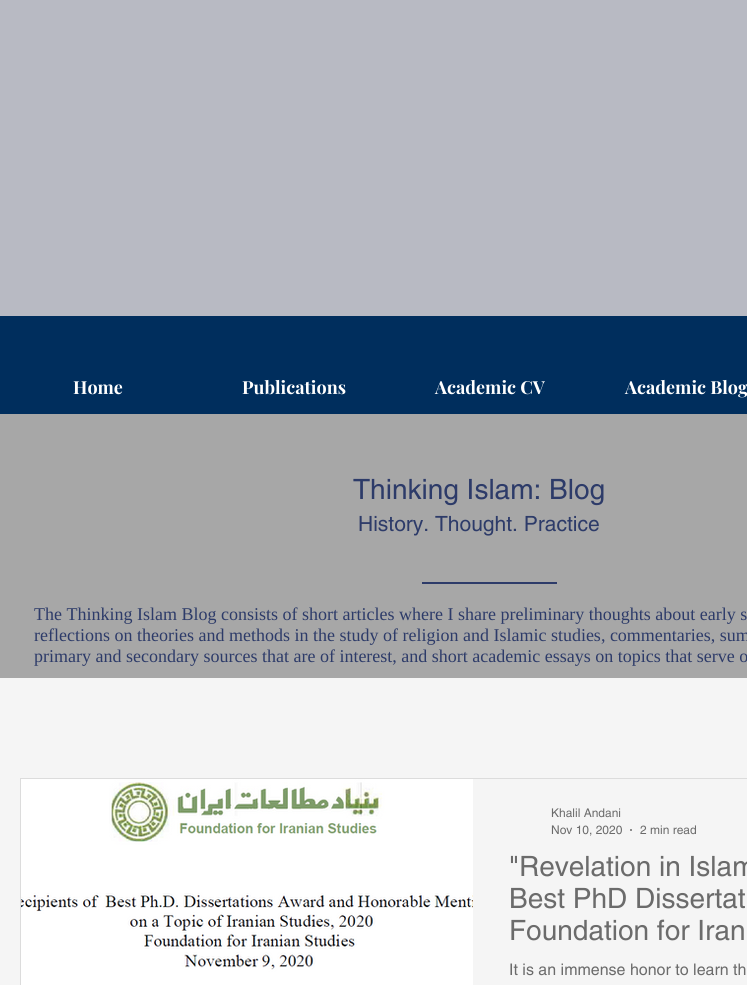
#include <cairo/cairo.h>
#include <math.h>
#include <stddef.h>

typedef struct { double x, y; const char *s; } line_t;
typedef struct { double x, y, w, h; unsigned color; } box_t;
static cairo_t *cr;

static void rgb(unsigned color)
{
	cairo_set_source_rgb(cr, (color >> 16) / 255.0, (color >> 8 & 255) / 255.0, (color & 255) / 255.0);
}

static void image(const char *path, double x, double y, double w, double h)
{
	cairo_surface_t *image = cairo_image_surface_create_from_png(path);
	cairo_save(cr);
	cairo_set_source_surface(cr, image, x, y);
	cairo_rectangle(cr, x, y, w, h);
	cairo_fill(cr);
	cairo_restore(cr);
	cairo_surface_destroy(image);
}

int main(void) {
	cairo_surface_t *surface = cairo_image_surface_create(CAIRO_FORMAT_RGB24, 747, 985);
	cr = cairo_create(surface);
	cairo_font_options_t *options = cairo_font_options_create();
	cairo_font_options_set_hint_metrics(options, CAIRO_HINT_METRICS_OFF);
	cairo_font_options_set_hint_style(options, CAIRO_HINT_STYLE_NONE);
	cairo_set_font_options(cr, options);
	cairo_set_miter_limit(cr, 4);
	rgb(0xa7a7a7);
	cairo_paint(cr);
	{
		static const box_t items[] = {
			{0, 316, 747, 98, 0x002e5d},
			{0, 0, 747, 316, 0xb8bac3},
			{422, 582, 135, 2, 0x2d3b69},
			{0, 678, 747, 307, 0xf5f5f5},
		};
		for (size_t i = 0; i < sizeof items / sizeof *items; i++) {
			rgb(items[i].color);
			cairo_rectangle(cr, items[i].x, items[i].y, items[i].w, items[i].h);
			cairo_fill(cr);
		}
	}
	cairo_rectangle(cr, 20.5, 778.5, 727, 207);
	rgb(0xdcdcdc);
	cairo_set_line_width(cr, 1);
	cairo_stroke(cr);
	image("img/1.png", 21, 779, 452, 206);
	rgb(0x6b6b6b);
	cairo_arc(cr, 631, 830, 1, 0, 2 * M_PI);
	cairo_fill(cr);
	cairo_select_font_face(cr, "Playfair Display", CAIRO_FONT_SLANT_NORMAL, CAIRO_FONT_WEIGHT_BOLD);
	cairo_set_font_size(cr, 18);
	rgb(0xffffff);
	{
		static const line_t items[] = {
			{73, 394, "Home"},
			{242, 394, "Publications"},
			{435, 394, "Academic CV"},
			{625, 394, "Academic Blog"},
		};
		for (size_t i = 0; i < sizeof items / sizeof *items; i++) {
			cairo_move_to(cr, items[i].x, items[i].y);
			cairo_show_text(cr, items[i].s);
		}
	}
	cairo_select_font_face(cr, "helvetica", CAIRO_FONT_SLANT_NORMAL, CAIRO_FONT_WEIGHT_NORMAL);
	cairo_set_font_size(cr, 28);
	rgb(0x2d3b69);
	cairo_move_to(cr, 353, 499);
	cairo_show_text(cr, "Thinking Islam: Blog");
	cairo_set_font_size(cr, 21);
	cairo_move_to(cr, 358, 531);
	cairo_show_text(cr, "History. Thought. Practice");
	cairo_select_font_face(cr, "Liberation Serif", CAIRO_FONT_SLANT_NORMAL, CAIRO_FONT_WEIGHT_NORMAL);
	cairo_set_font_size(cr, 18);
	{
		static const line_t items[] = {
			{34, 620, "The Thinking Islam Blog consists of short articles where I share preliminary thoughts about early s"},
			{34, 641, "reflections on theories and methods in the study of religion and Islamic studies, commentaries, sum"},
			{34, 662, "primary and secondary sources that are of interest, and short academic essays on topics that serve o"},
		};
		for (size_t i = 0; i < sizeof items / sizeof *items; i++) {
			cairo_move_to(cr, items[i].x, items[i].y);
			cairo_show_text(cr, items[i].s);
		}
	}
	cairo_select_font_face(cr, "helvetica", CAIRO_FONT_SLANT_NORMAL, CAIRO_FONT_WEIGHT_NORMAL);
	cairo_set_font_size(cr, 12);
	rgb(0x6b6b6b);
	{
		static const line_t items[] = {
			{551, 817, "Khalil Andani"},
			{551, 834, "Nov 10, 2020"},
			{640, 834, "2 min read"},
		};
		for (size_t i = 0; i < sizeof items / sizeof *items; i++) {
			cairo_move_to(cr, items[i].x, items[i].y);
			cairo_show_text(cr, items[i].s);
		}
	}
	cairo_set_font_size(cr, 28);
	{
		static const line_t items[] = {
			{509, 876, "\"Revelation in Islam"},
			{509, 908, "Best PhD Dissertat"},
			{509, 940, "Foundation for Iran"},
		};
		for (size_t i = 0; i < sizeof items / sizeof *items; i++) {
			cairo_move_to(cr, items[i].x, items[i].y);
			cairo_show_text(cr, items[i].s);
		}
	}
	cairo_set_font_size(cr, 16);
	cairo_move_to(cr, 509, 975);
	cairo_show_text(cr, "It is an immense honor to learn th");
	cairo_surface_write_to_png(surface, "page.png");
	cairo_font_options_destroy(options);
	cairo_destroy(cr);
	cairo_surface_destroy(surface);
	return 0;
}
